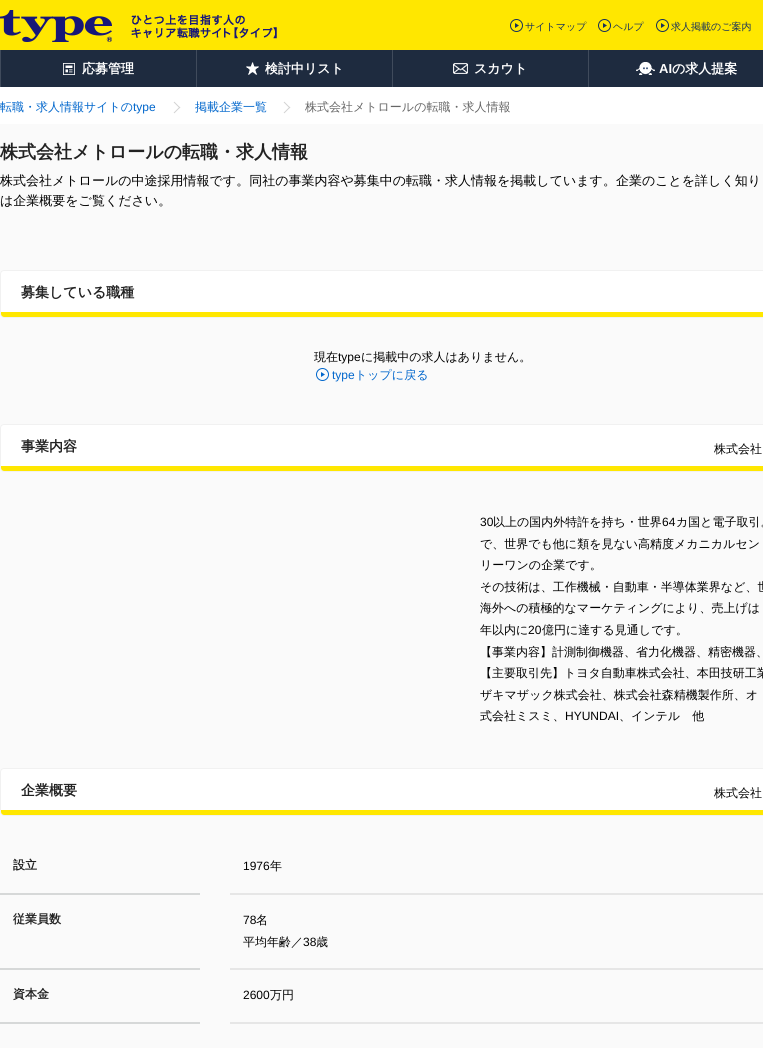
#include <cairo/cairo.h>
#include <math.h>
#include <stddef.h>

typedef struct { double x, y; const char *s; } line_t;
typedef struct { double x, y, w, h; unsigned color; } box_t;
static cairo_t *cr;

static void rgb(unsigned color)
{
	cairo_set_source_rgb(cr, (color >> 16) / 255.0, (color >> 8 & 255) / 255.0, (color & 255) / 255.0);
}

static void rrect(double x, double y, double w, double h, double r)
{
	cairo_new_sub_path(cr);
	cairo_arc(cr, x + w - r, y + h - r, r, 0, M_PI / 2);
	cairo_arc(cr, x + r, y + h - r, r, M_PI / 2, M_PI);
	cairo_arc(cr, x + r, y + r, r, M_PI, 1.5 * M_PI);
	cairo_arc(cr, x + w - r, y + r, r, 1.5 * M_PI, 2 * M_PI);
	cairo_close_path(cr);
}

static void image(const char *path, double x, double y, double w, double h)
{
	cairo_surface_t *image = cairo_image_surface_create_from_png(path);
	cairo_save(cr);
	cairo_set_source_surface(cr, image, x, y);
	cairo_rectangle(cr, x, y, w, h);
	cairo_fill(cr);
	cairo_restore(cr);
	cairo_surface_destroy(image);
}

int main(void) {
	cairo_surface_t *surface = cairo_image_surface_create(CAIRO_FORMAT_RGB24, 763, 1048);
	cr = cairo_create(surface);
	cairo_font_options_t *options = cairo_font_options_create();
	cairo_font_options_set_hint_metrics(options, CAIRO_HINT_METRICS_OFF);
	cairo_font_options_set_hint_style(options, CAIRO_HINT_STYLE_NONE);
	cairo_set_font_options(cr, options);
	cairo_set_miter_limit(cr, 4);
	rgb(0xfafafa);
	cairo_paint(cr);
	rgb(0xffe700);
	cairo_rectangle(cr, 0, 0, 763, 50);
	cairo_fill(cr);
	image("img/1.png", 0, 10, 277, 32);
	image("img/2.png", 510, 19, 13, 13);
	image("img/2.png", 598, 19, 13, 13);
	image("img/2.png", 656, 19, 13, 13);
	{
		static const box_t items[] = {
			{1, 50, 762, 37, 0x1e2b3f},
			{0, 50, 1, 37, 0x404b5c},
			{196, 50, 1, 37, 0x404b5c},
		};
		for (size_t i = 0; i < sizeof items / sizeof *items; i++) {
			rgb(items[i].color);
			cairo_rectangle(cr, items[i].x, items[i].y, items[i].w, items[i].h);
			cairo_fill(cr);
		}
	}
	image("img/3.png", 63, 63, 12, 12);
	cairo_rectangle(cr, 392, 50, 1, 37);
	cairo_fill(cr);
	image("img/4.png", 246, 62, 13, 13);
	cairo_rectangle(cr, 588, 50, 1, 37);
	cairo_fill(cr);
	image("img/5.png", 453, 63, 15, 11);
	image("img/6.png", 636, 62, 19, 13);
	rgb(0xffffff);
	cairo_rectangle(cr, 0, 87, 763, 37);
	cairo_fill(cr);
	image("img/7.png", 173, 101, 8, 13);
	image("img/7.png", 283, 101, 8, 13);
	rrect(0.5, 270.5, 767, 47, 3.5);
	cairo_fill_preserve(cr);
	rgb(0xf1f1f1);
	cairo_set_line_width(cr, 1);
	cairo_stroke(cr);
	rgb(0xffe700);
	cairo_new_path(cr);
	cairo_move_to(cr, 1, 312);
	cairo_line_to(cr, 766, 312);
	cairo_line_to(cr, 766, 314);
	cairo_curve_to(cr, 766, 315.5, 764.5, 317, 763, 317);
	cairo_line_to(cr, 4, 317);
	cairo_curve_to(cr, 2.5, 317, 1, 315.5, 1, 314);
	cairo_close_path(cr);
	cairo_fill(cr);
	image("img/8.png", 316, 368, 13, 13);
	rgb(0xffffff);
	rrect(0.5, 424.5, 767, 47, 3.5);
	cairo_fill_preserve(cr);
	rgb(0xf1f1f1);
	cairo_stroke(cr);
	rgb(0xffe700);
	cairo_new_path(cr);
	cairo_move_to(cr, 1, 466);
	cairo_line_to(cr, 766, 466);
	cairo_line_to(cr, 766, 468);
	cairo_curve_to(cr, 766, 469.5, 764.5, 471, 763, 471);
	cairo_line_to(cr, 4, 471);
	cairo_curve_to(cr, 2.5, 471, 1, 469.5, 1, 468);
	cairo_close_path(cr);
	cairo_fill(cr);
	rgb(0xffffff);
	rrect(0.5, 768.5, 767, 47, 3.5);
	cairo_fill_preserve(cr);
	rgb(0xf1f1f1);
	cairo_stroke(cr);
	rgb(0xffe700);
	cairo_new_path(cr);
	cairo_move_to(cr, 1, 810);
	cairo_line_to(cr, 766, 810);
	cairo_line_to(cr, 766, 812);
	cairo_curve_to(cr, 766, 813.5, 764.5, 815, 763, 815);
	cairo_line_to(cr, 4, 815);
	cairo_curve_to(cr, 2.5, 815, 1, 813.5, 1, 812);
	cairo_close_path(cr);
	cairo_fill(cr);
	{
		static const box_t items[] = {
			{0, 893, 200, 2, 0xd6d8d8},
			{230, 893, 533, 2, 0xe6e6e6},
			{0, 968, 200, 2, 0xd6d8d8},
			{230, 968, 533, 2, 0xe6e6e6},
			{0, 1022, 200, 2, 0xd6d8d8},
			{230, 1022, 533, 2, 0xe6e6e6},
		};
		for (size_t i = 0; i < sizeof items / sizeof *items; i++) {
			rgb(items[i].color);
			cairo_rectangle(cr, items[i].x, items[i].y, items[i].w, items[i].h);
			cairo_fill(cr);
		}
	}
	cairo_select_font_face(cr, "WenQuanYi Zen Hei Medium", CAIRO_FONT_SLANT_NORMAL, CAIRO_FONT_WEIGHT_NORMAL);
	cairo_set_font_size(cr, 10);
	rgb(0x15305c);
	{
		static const line_t items[] = {
			{525, 30, "サイトマップ"},
			{613, 30, "ヘルプ"},
			{671, 30, "求人掲載のご案内"},
		};
		for (size_t i = 0; i < sizeof items / sizeof *items; i++) {
			cairo_move_to(cr, items[i].x, items[i].y);
			cairo_show_text(cr, items[i].s);
		}
	}
	cairo_select_font_face(cr, "WenQuanYi Zen Hei", CAIRO_FONT_SLANT_NORMAL, CAIRO_FONT_WEIGHT_BOLD);
	cairo_set_font_size(cr, 13);
	rgb(0xffffff);
	{
		static const line_t items[] = {
			{82, 73, "応募管理"},
			{265, 73, "検討中リスト"},
			{474, 73, "スカウト"},
		};
		for (size_t i = 0; i < sizeof items / sizeof *items; i++) {
			cairo_move_to(cr, items[i].x, items[i].y);
			cairo_show_text(cr, items[i].s);
		}
	}
	cairo_select_font_face(cr, "Liberation Sans", CAIRO_FONT_SLANT_NORMAL, CAIRO_FONT_WEIGHT_BOLD);
	cairo_move_to(cr, 659, 73);
	cairo_show_text(cr, "AI");
	cairo_select_font_face(cr, "WenQuanYi Zen Hei", CAIRO_FONT_SLANT_NORMAL, CAIRO_FONT_WEIGHT_BOLD);
	cairo_move_to(cr, 672, 73);
	cairo_show_text(cr, "の求人提案");
	cairo_select_font_face(cr, "WenQuanYi Zen Hei Medium", CAIRO_FONT_SLANT_NORMAL, CAIRO_FONT_WEIGHT_NORMAL);
	cairo_set_font_size(cr, 12);
	rgb(0x0066cc);
	cairo_move_to(cr, 0, 111);
	cairo_show_text(cr, "転職・求人情報サイトの");
	cairo_select_font_face(cr, "Liberation Sans", CAIRO_FONT_SLANT_NORMAL, CAIRO_FONT_WEIGHT_NORMAL);
	cairo_move_to(cr, 133, 111);
	cairo_show_text(cr, "type");
	cairo_select_font_face(cr, "WenQuanYi Zen Hei Medium", CAIRO_FONT_SLANT_NORMAL, CAIRO_FONT_WEIGHT_NORMAL);
	cairo_move_to(cr, 195, 111);
	cairo_show_text(cr, "掲載企業一覧");
	rgb(0x666666);
	cairo_move_to(cr, 305, 111);
	cairo_show_text(cr, "株式会社メトロールの転職・求人情報");
	cairo_select_font_face(cr, "WenQuanYi Zen Hei", CAIRO_FONT_SLANT_NORMAL, CAIRO_FONT_WEIGHT_BOLD);
	cairo_set_font_size(cr, 18);
	rgb(0x222222);
	cairo_move_to(cr, 0, 158);
	cairo_show_text(cr, "株式会社メトロールの転職・求人情報");
	cairo_select_font_face(cr, "WenQuanYi Zen Hei Medium", CAIRO_FONT_SLANT_NORMAL, CAIRO_FONT_WEIGHT_NORMAL);
	cairo_set_font_size(cr, 13);
	rgb(0x000000);
	cairo_move_to(cr, 0, 185);
	cairo_show_text(cr, "株式会社メトロールの中途採用情報です。同社の事業内容や募集中の転職・求人情報を掲載しています。企業のことを詳しく知り");
	cairo_move_to(cr, 0, 205);
	cairo_show_text(cr, "は企業概要をご覧ください。");
	cairo_select_font_face(cr, "WenQuanYi Zen Hei", CAIRO_FONT_SLANT_NORMAL, CAIRO_FONT_WEIGHT_BOLD);
	cairo_set_font_size(cr, 14);
	rgb(0x222222);
	cairo_move_to(cr, 21, 297);
	cairo_show_text(cr, "募集している職種");
	cairo_select_font_face(cr, "WenQuanYi Zen Hei Medium", CAIRO_FONT_SLANT_NORMAL, CAIRO_FONT_WEIGHT_NORMAL);
	cairo_set_font_size(cr, 12);
	rgb(0x000000);
	cairo_move_to(cr, 314, 361);
	cairo_show_text(cr, "現在");
	cairo_select_font_face(cr, "Liberation Sans", CAIRO_FONT_SLANT_NORMAL, CAIRO_FONT_WEIGHT_NORMAL);
	cairo_move_to(cr, 338, 361);
	cairo_show_text(cr, "type");
	cairo_select_font_face(cr, "WenQuanYi Zen Hei Medium", CAIRO_FONT_SLANT_NORMAL, CAIRO_FONT_WEIGHT_NORMAL);
	cairo_move_to(cr, 361, 361);
	cairo_show_text(cr, "に掲載中の求人はありません。");
	cairo_select_font_face(cr, "Liberation Sans", CAIRO_FONT_SLANT_NORMAL, CAIRO_FONT_WEIGHT_NORMAL);
	rgb(0x0066cc);
	cairo_move_to(cr, 332, 379);
	cairo_show_text(cr, "type");
	cairo_select_font_face(cr, "WenQuanYi Zen Hei Medium", CAIRO_FONT_SLANT_NORMAL, CAIRO_FONT_WEIGHT_NORMAL);
	cairo_move_to(cr, 355, 379);
	cairo_show_text(cr, "トップに戻る");
	cairo_select_font_face(cr, "WenQuanYi Zen Hei", CAIRO_FONT_SLANT_NORMAL, CAIRO_FONT_WEIGHT_BOLD);
	cairo_set_font_size(cr, 14);
	rgb(0x222222);
	cairo_move_to(cr, 21, 451);
	cairo_show_text(cr, "事業内容");
	cairo_select_font_face(cr, "WenQuanYi Zen Hei Medium", CAIRO_FONT_SLANT_NORMAL, CAIRO_FONT_WEIGHT_NORMAL);
	cairo_set_font_size(cr, 12);
	rgb(0x000000);
	cairo_move_to(cr, 714, 453);
	cairo_show_text(cr, "株式会社");
	cairo_select_font_face(cr, "Liberation Sans", CAIRO_FONT_SLANT_NORMAL, CAIRO_FONT_WEIGHT_NORMAL);
	cairo_move_to(cr, 480, 526);
	cairo_show_text(cr, "30");
	cairo_select_font_face(cr, "WenQuanYi Zen Hei Medium", CAIRO_FONT_SLANT_NORMAL, CAIRO_FONT_WEIGHT_NORMAL);
	cairo_move_to(cr, 493, 526);
	cairo_show_text(cr, "以上の国内外特許を持ち・世界");
	cairo_select_font_face(cr, "Liberation Sans", CAIRO_FONT_SLANT_NORMAL, CAIRO_FONT_WEIGHT_NORMAL);
	cairo_move_to(cr, 662, 526);
	cairo_show_text(cr, "64");
	cairo_select_font_face(cr, "WenQuanYi Zen Hei Medium", CAIRO_FONT_SLANT_NORMAL, CAIRO_FONT_WEIGHT_NORMAL);
	{
		static const line_t items[] = {
			{676, 526, "カ国と電子取引。"},
			{480, 548, "で、世界でも他に類を見ない高精度メカニカルセン"},
			{480, 569, "リーワンの企業です。"},
			{480, 591, "その技術は、工作機械・自動車・半導体業界など、世"},
			{480, 612, "海外への積極的なマーケティングにより、売上げは"},
			{480, 634, "年以内に"},
		};
		for (size_t i = 0; i < sizeof items / sizeof *items; i++) {
			cairo_move_to(cr, items[i].x, items[i].y);
			cairo_show_text(cr, items[i].s);
		}
	}
	cairo_select_font_face(cr, "Liberation Sans", CAIRO_FONT_SLANT_NORMAL, CAIRO_FONT_WEIGHT_NORMAL);
	cairo_move_to(cr, 528, 634);
	cairo_show_text(cr, "20");
	cairo_select_font_face(cr, "WenQuanYi Zen Hei Medium", CAIRO_FONT_SLANT_NORMAL, CAIRO_FONT_WEIGHT_NORMAL);
	{
		static const line_t items[] = {
			{542, 634, "億円に達する見通しです。"},
			{480, 656, "【事業内容】計測制御機器、省力化機器、精密機器、"},
			{480, 677, "【主要取引先】トヨタ自動車株式会社、本田技研工業"},
			{480, 699, "ザキマザック株式会社、株式会社森精機製作所、オ"},
			{480, 720, "式会社ミスミ、"},
		};
		for (size_t i = 0; i < sizeof items / sizeof *items; i++) {
			cairo_move_to(cr, items[i].x, items[i].y);
			cairo_show_text(cr, items[i].s);
		}
	}
	cairo_select_font_face(cr, "Liberation Sans", CAIRO_FONT_SLANT_NORMAL, CAIRO_FONT_WEIGHT_NORMAL);
	cairo_move_to(cr, 565, 720);
	cairo_show_text(cr, "HYUNDAI");
	cairo_select_font_face(cr, "WenQuanYi Zen Hei Medium", CAIRO_FONT_SLANT_NORMAL, CAIRO_FONT_WEIGHT_NORMAL);
	cairo_move_to(cr, 619, 720);
	cairo_show_text(cr, "、インテル　他");
	cairo_select_font_face(cr, "WenQuanYi Zen Hei", CAIRO_FONT_SLANT_NORMAL, CAIRO_FONT_WEIGHT_BOLD);
	cairo_set_font_size(cr, 14);
	rgb(0x222222);
	cairo_move_to(cr, 21, 795);
	cairo_show_text(cr, "企業概要");
	cairo_select_font_face(cr, "WenQuanYi Zen Hei Medium", CAIRO_FONT_SLANT_NORMAL, CAIRO_FONT_WEIGHT_NORMAL);
	cairo_set_font_size(cr, 12);
	rgb(0x000000);
	cairo_move_to(cr, 714, 797);
	cairo_show_text(cr, "株式会社");
	cairo_select_font_face(cr, "WenQuanYi Zen Hei", CAIRO_FONT_SLANT_NORMAL, CAIRO_FONT_WEIGHT_BOLD);
	rgb(0x222222);
	cairo_move_to(cr, 13, 869);
	cairo_show_text(cr, "設立");
	cairo_select_font_face(cr, "Liberation Sans", CAIRO_FONT_SLANT_NORMAL, CAIRO_FONT_WEIGHT_NORMAL);
	rgb(0x000000);
	cairo_move_to(cr, 243, 870);
	cairo_show_text(cr, "1976");
	cairo_select_font_face(cr, "WenQuanYi Zen Hei Medium", CAIRO_FONT_SLANT_NORMAL, CAIRO_FONT_WEIGHT_NORMAL);
	cairo_move_to(cr, 270, 870);
	cairo_show_text(cr, "年");
	cairo_select_font_face(cr, "WenQuanYi Zen Hei", CAIRO_FONT_SLANT_NORMAL, CAIRO_FONT_WEIGHT_BOLD);
	rgb(0x222222);
	cairo_move_to(cr, 13, 923);
	cairo_show_text(cr, "従業員数");
	cairo_select_font_face(cr, "Liberation Sans", CAIRO_FONT_SLANT_NORMAL, CAIRO_FONT_WEIGHT_NORMAL);
	rgb(0x000000);
	cairo_move_to(cr, 243, 924);
	cairo_show_text(cr, "78");
	cairo_select_font_face(cr, "WenQuanYi Zen Hei Medium", CAIRO_FONT_SLANT_NORMAL, CAIRO_FONT_WEIGHT_NORMAL);
	cairo_move_to(cr, 256, 924);
	cairo_show_text(cr, "名");
	cairo_move_to(cr, 243, 946);
	cairo_show_text(cr, "平均年齢／");
	cairo_select_font_face(cr, "Liberation Sans", CAIRO_FONT_SLANT_NORMAL, CAIRO_FONT_WEIGHT_NORMAL);
	cairo_move_to(cr, 303, 946);
	cairo_show_text(cr, "38");
	cairo_select_font_face(cr, "WenQuanYi Zen Hei Medium", CAIRO_FONT_SLANT_NORMAL, CAIRO_FONT_WEIGHT_NORMAL);
	cairo_move_to(cr, 316, 946);
	cairo_show_text(cr, "歳");
	cairo_select_font_face(cr, "WenQuanYi Zen Hei", CAIRO_FONT_SLANT_NORMAL, CAIRO_FONT_WEIGHT_BOLD);
	rgb(0x222222);
	cairo_move_to(cr, 13, 998);
	cairo_show_text(cr, "資本金");
	cairo_select_font_face(cr, "Liberation Sans", CAIRO_FONT_SLANT_NORMAL, CAIRO_FONT_WEIGHT_NORMAL);
	rgb(0x000000);
	cairo_move_to(cr, 243, 999);
	cairo_show_text(cr, "2600");
	cairo_select_font_face(cr, "WenQuanYi Zen Hei Medium", CAIRO_FONT_SLANT_NORMAL, CAIRO_FONT_WEIGHT_NORMAL);
	cairo_move_to(cr, 270, 999);
	cairo_show_text(cr, "万円");
	cairo_surface_write_to_png(surface, "page.png");
	cairo_font_options_destroy(options);
	cairo_destroy(cr);
	cairo_surface_destroy(surface);
	return 0;
}
